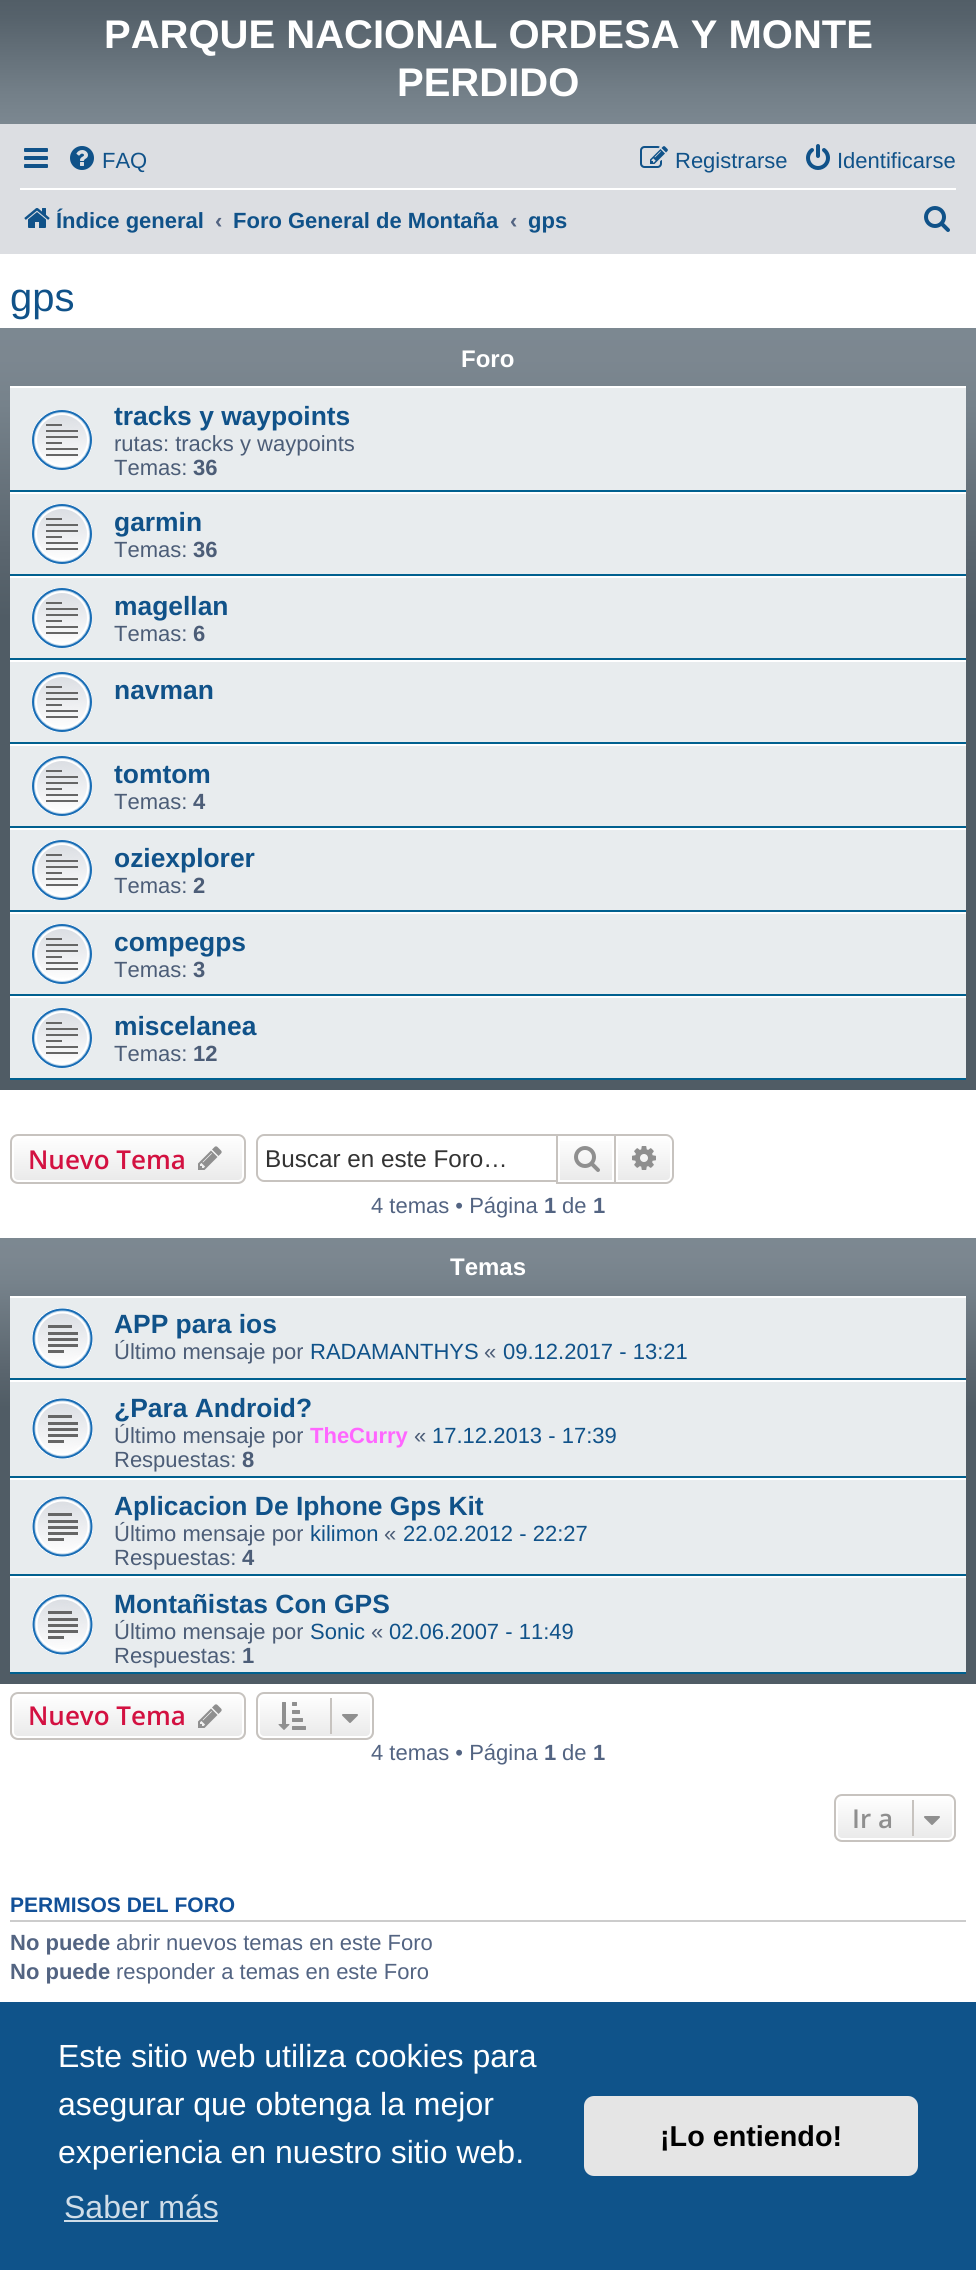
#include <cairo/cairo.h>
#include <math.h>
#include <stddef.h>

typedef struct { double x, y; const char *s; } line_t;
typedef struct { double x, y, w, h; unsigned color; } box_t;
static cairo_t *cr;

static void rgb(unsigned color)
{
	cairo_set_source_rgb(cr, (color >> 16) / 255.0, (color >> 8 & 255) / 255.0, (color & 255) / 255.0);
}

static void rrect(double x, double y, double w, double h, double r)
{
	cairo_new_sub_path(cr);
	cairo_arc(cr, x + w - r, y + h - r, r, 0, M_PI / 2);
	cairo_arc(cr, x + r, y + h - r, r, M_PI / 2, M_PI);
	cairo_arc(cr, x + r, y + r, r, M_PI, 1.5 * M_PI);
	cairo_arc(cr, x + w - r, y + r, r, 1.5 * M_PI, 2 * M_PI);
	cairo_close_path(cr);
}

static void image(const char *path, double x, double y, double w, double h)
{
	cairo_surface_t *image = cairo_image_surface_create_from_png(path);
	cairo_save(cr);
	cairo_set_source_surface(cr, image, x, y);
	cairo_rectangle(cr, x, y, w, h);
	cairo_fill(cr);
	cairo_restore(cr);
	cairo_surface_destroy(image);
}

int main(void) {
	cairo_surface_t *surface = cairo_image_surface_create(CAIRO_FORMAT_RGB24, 976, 2270);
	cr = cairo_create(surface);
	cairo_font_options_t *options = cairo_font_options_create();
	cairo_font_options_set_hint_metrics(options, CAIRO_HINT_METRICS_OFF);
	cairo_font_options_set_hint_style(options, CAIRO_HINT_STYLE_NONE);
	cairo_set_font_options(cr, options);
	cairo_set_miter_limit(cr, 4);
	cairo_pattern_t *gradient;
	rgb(0xffffff);
	cairo_paint(cr);
	gradient = cairo_pattern_create_linear(488, -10, 488, 126);
	cairo_pattern_add_color_stop_rgba(gradient, 0, 0.431, 0.467, 0.498, 1);
	cairo_pattern_add_color_stop_rgba(gradient, 0.01, 0.314, 0.361, 0.396, 1);
	cairo_pattern_add_color_stop_rgba(gradient, 0.2, 0.337, 0.384, 0.42, 1);
	cairo_pattern_add_color_stop_rgba(gradient, 0.75, 0.451, 0.498, 0.533, 1);
	cairo_pattern_add_color_stop_rgba(gradient, 1, 0.486, 0.533, 0.569, 1);
	cairo_set_source(cr, gradient);
	cairo_pattern_destroy(gradient);
	cairo_rectangle(cr, 0, 0, 976, 124);
	cairo_fill(cr);
	rgb(0xdcdee2);
	cairo_rectangle(cr, 0, 124, 976, 130);
	cairo_fill(cr);
	image("img/1.png", 24, 148, 24, 20);
	image("img/2.png", 70, 146, 24, 24);
	image("img/3.png", 640, 146, 28, 22);
	image("img/4.png", 806, 144, 24, 26);
	rgb(0xffffff);
	cairo_rectangle(cr, 20, 188, 936, 2);
	cairo_fill(cr);
	image("img/5.png", 24, 208, 26, 20);
	image("img/6.png", 924, 206, 26, 26);
	gradient = cairo_pattern_create_linear(488, 328, 488, 1090);
	cairo_pattern_add_color_stop_rgba(gradient, 0, 0.486, 0.533, 0.569, 1);
	cairo_pattern_add_color_stop_rgba(gradient, 0.04, 0.486, 0.529, 0.565, 1);
	cairo_pattern_add_color_stop_rgba(gradient, 0.1, 0.463, 0.51, 0.545, 1);
	cairo_pattern_add_color_stop_rgba(gradient, 0.29, 0.357, 0.4, 0.435, 1);
	cairo_pattern_add_color_stop_rgba(gradient, 0.38, 0.314, 0.361, 0.396, 1);
	cairo_pattern_add_color_stop_rgba(gradient, 1, 0.314, 0.361, 0.396, 1);
	cairo_set_source(cr, gradient);
	cairo_pattern_destroy(gradient);
	cairo_rectangle(cr, 0, 328, 976, 762);
	cairo_fill(cr);
	{
		static const box_t items[] = {
			{10, 388, 956, 102, 0xe8ecee},
			{10, 386, 956, 2, 0xffffff},
			{10, 490, 956, 2, 0x00608f},
		};
		for (size_t i = 0; i < sizeof items / sizeof *items; i++) {
			rgb(items[i].color);
			cairo_rectangle(cr, items[i].x, items[i].y, items[i].w, items[i].h);
			cairo_fill(cr);
		}
	}
	image("img/7.png", 32, 410, 60, 60);
	{
		static const box_t items[] = {
			{10, 494, 956, 80, 0xe8ecee},
			{10, 492, 956, 2, 0xffffff},
			{10, 574, 956, 2, 0x00608f},
		};
		for (size_t i = 0; i < sizeof items / sizeof *items; i++) {
			rgb(items[i].color);
			cairo_rectangle(cr, items[i].x, items[i].y, items[i].w, items[i].h);
			cairo_fill(cr);
		}
	}
	image("img/7.png", 32, 504, 60, 60);
	{
		static const box_t items[] = {
			{10, 578, 956, 80, 0xe8ecee},
			{10, 576, 956, 2, 0xffffff},
			{10, 658, 956, 2, 0x00608f},
		};
		for (size_t i = 0; i < sizeof items / sizeof *items; i++) {
			rgb(items[i].color);
			cairo_rectangle(cr, items[i].x, items[i].y, items[i].w, items[i].h);
			cairo_fill(cr);
		}
	}
	image("img/7.png", 32, 588, 60, 60);
	{
		static const box_t items[] = {
			{10, 662, 956, 80, 0xe8ecee},
			{10, 660, 956, 2, 0xffffff},
			{10, 742, 956, 2, 0x00608f},
		};
		for (size_t i = 0; i < sizeof items / sizeof *items; i++) {
			rgb(items[i].color);
			cairo_rectangle(cr, items[i].x, items[i].y, items[i].w, items[i].h);
			cairo_fill(cr);
		}
	}
	image("img/7.png", 32, 672, 60, 60);
	{
		static const box_t items[] = {
			{10, 746, 956, 80, 0xe8ecee},
			{10, 744, 956, 2, 0xffffff},
			{10, 826, 956, 2, 0x00608f},
		};
		for (size_t i = 0; i < sizeof items / sizeof *items; i++) {
			rgb(items[i].color);
			cairo_rectangle(cr, items[i].x, items[i].y, items[i].w, items[i].h);
			cairo_fill(cr);
		}
	}
	image("img/7.png", 32, 756, 60, 60);
	{
		static const box_t items[] = {
			{10, 830, 956, 80, 0xe8ecee},
			{10, 828, 956, 2, 0xffffff},
			{10, 910, 956, 2, 0x00608f},
		};
		for (size_t i = 0; i < sizeof items / sizeof *items; i++) {
			rgb(items[i].color);
			cairo_rectangle(cr, items[i].x, items[i].y, items[i].w, items[i].h);
			cairo_fill(cr);
		}
	}
	image("img/7.png", 32, 840, 60, 60);
	{
		static const box_t items[] = {
			{10, 914, 956, 80, 0xe8ecee},
			{10, 912, 956, 2, 0xffffff},
			{10, 994, 956, 2, 0x00608f},
		};
		for (size_t i = 0; i < sizeof items / sizeof *items; i++) {
			rgb(items[i].color);
			cairo_rectangle(cr, items[i].x, items[i].y, items[i].w, items[i].h);
			cairo_fill(cr);
		}
	}
	image("img/7.png", 32, 924, 60, 60);
	{
		static const box_t items[] = {
			{10, 998, 956, 80, 0xe8ecee},
			{10, 996, 956, 2, 0xffffff},
			{10, 1078, 956, 2, 0x00608f},
		};
		for (size_t i = 0; i < sizeof items / sizeof *items; i++) {
			rgb(items[i].color);
			cairo_rectangle(cr, items[i].x, items[i].y, items[i].w, items[i].h);
			cairo_fill(cr);
		}
	}
	image("img/7.png", 32, 1008, 60, 60);
	cairo_save(cr);
	rrect(10, 1134, 236, 50, 8);
	cairo_clip(cr);
	gradient = cairo_pattern_create_linear(128, 1136, 128, 1182);
	cairo_pattern_add_color_stop_rgba(gradient, 0, 1, 1, 1, 1);
	cairo_pattern_add_color_stop_rgba(gradient, 1, 0.914, 0.914, 0.914, 1);
	cairo_set_source(cr, gradient);
	cairo_pattern_destroy(gradient);
	cairo_rectangle(cr, 10, 1136, 236, 46);
	cairo_fill(cr);
	cairo_restore(cr);
	rrect(13, 1137, 230, 44, 5);
	rgb(0xffffff);
	cairo_stroke(cr);
	rrect(11, 1135, 234, 48, 7);
	rgb(0xc7c3bf);
	cairo_stroke(cr);
	image("img/8.png", 198, 1146, 24, 24);
	cairo_set_fill_rule(cr, CAIRO_FILL_RULE_EVEN_ODD);
	cairo_new_path(cr);
	cairo_move_to(cr, 264, 1134);
	cairo_line_to(cr, 556, 1134);
	cairo_line_to(cr, 556, 1182);
	cairo_line_to(cr, 264, 1182);
	cairo_curve_to(cr, 260, 1182, 256, 1178, 256, 1174);
	cairo_line_to(cr, 256, 1142);
	cairo_curve_to(cr, 256, 1138, 260, 1134, 264, 1134);
	cairo_close_path(cr);
	cairo_move_to(cr, 264, 1136);
	cairo_line_to(cr, 556, 1136);
	cairo_line_to(cr, 556, 1180);
	cairo_line_to(cr, 264, 1180);
	cairo_curve_to(cr, 261, 1180, 258, 1177, 258, 1174);
	cairo_line_to(cr, 258, 1142);
	cairo_curve_to(cr, 258, 1139, 261, 1136, 264, 1136);
	cairo_close_path(cr);
	cairo_fill(cr);
	gradient = cairo_pattern_create_linear(586, 1136, 586, 1182);
	cairo_pattern_add_color_stop_rgba(gradient, 0, 1, 1, 1, 1);
	cairo_pattern_add_color_stop_rgba(gradient, 1, 0.914, 0.914, 0.914, 1);
	cairo_set_source(cr, gradient);
	cairo_pattern_destroy(gradient);
	cairo_rectangle(cr, 560, 1141, 52, 39);
	cairo_fill(cr);
	cairo_rectangle(cr, 557, 1135, 58, 48);
	rgb(0xc7c3bf);
	cairo_stroke(cr);
	image("img/9.png", 574, 1146, 26, 26);
	gradient = cairo_pattern_create_linear(644, 1136, 644, 1182);
	cairo_pattern_add_color_stop_rgba(gradient, 0, 1, 1, 1, 1);
	cairo_pattern_add_color_stop_rgba(gradient, 1, 0.914, 0.914, 0.914, 1);
	cairo_set_source(cr, gradient);
	cairo_pattern_destroy(gradient);
	cairo_new_path(cr);
	cairo_move_to(cr, 617, 1137);
	cairo_line_to(cr, 666, 1137);
	cairo_curve_to(cr, 669, 1137, 671, 1139, 671, 1142);
	cairo_line_to(cr, 671, 1176);
	cairo_curve_to(cr, 671, 1179, 669, 1181, 666, 1181);
	cairo_line_to(cr, 617, 1181);
	cairo_close_path(cr);
	cairo_fill_preserve(cr);
	rgb(0xffffff);
	cairo_stroke(cr);
	rgb(0xc7c3bf);
	cairo_new_path(cr);
	cairo_move_to(cr, 616, 1134);
	cairo_line_to(cr, 666, 1134);
	cairo_curve_to(cr, 670, 1134, 674, 1138, 674, 1142);
	cairo_line_to(cr, 674, 1176);
	cairo_curve_to(cr, 674, 1180, 670, 1184, 666, 1184);
	cairo_line_to(cr, 616, 1184);
	cairo_close_path(cr);
	cairo_move_to(cr, 616, 1136);
	cairo_line_to(cr, 666, 1136);
	cairo_curve_to(cr, 669, 1136, 672, 1139, 672, 1142);
	cairo_line_to(cr, 672, 1176);
	cairo_curve_to(cr, 672, 1179, 669, 1182, 666, 1182);
	cairo_line_to(cr, 616, 1182);
	cairo_close_path(cr);
	cairo_fill(cr);
	image("img/10.png", 632, 1146, 24, 24);
	gradient = cairo_pattern_create_linear(488, 1238, 488, 1684);
	cairo_pattern_add_color_stop_rgba(gradient, 0, 0.486, 0.533, 0.569, 1);
	cairo_pattern_add_color_stop_rgba(gradient, 0.04, 0.486, 0.529, 0.565, 1);
	cairo_pattern_add_color_stop_rgba(gradient, 0.1, 0.463, 0.51, 0.545, 1);
	cairo_pattern_add_color_stop_rgba(gradient, 0.29, 0.357, 0.4, 0.435, 1);
	cairo_pattern_add_color_stop_rgba(gradient, 0.38, 0.314, 0.361, 0.396, 1);
	cairo_pattern_add_color_stop_rgba(gradient, 1, 0.314, 0.361, 0.396, 1);
	cairo_set_source(cr, gradient);
	cairo_pattern_destroy(gradient);
	cairo_rectangle(cr, 0, 1238, 976, 446);
	cairo_fill(cr);
	{
		static const box_t items[] = {
			{10, 1298, 956, 80, 0xe8ecee},
			{10, 1296, 956, 2, 0xffffff},
			{10, 1378, 956, 2, 0x00608f},
		};
		for (size_t i = 0; i < sizeof items / sizeof *items; i++) {
			rgb(items[i].color);
			cairo_rectangle(cr, items[i].x, items[i].y, items[i].w, items[i].h);
			cairo_fill(cr);
		}
	}
	image("img/11.png", 32, 1308, 61, 61);
	{
		static const box_t items[] = {
			{10, 1382, 956, 94, 0xe8ecee},
			{10, 1380, 956, 2, 0xffffff},
			{10, 1476, 956, 2, 0x00608f},
		};
		for (size_t i = 0; i < sizeof items / sizeof *items; i++) {
			rgb(items[i].color);
			cairo_rectangle(cr, items[i].x, items[i].y, items[i].w, items[i].h);
			cairo_fill(cr);
		}
	}
	image("img/11.png", 32, 1398, 61, 61);
	{
		static const box_t items[] = {
			{10, 1480, 956, 94, 0xe8ecee},
			{10, 1478, 956, 2, 0xffffff},
			{10, 1574, 956, 2, 0x00608f},
		};
		for (size_t i = 0; i < sizeof items / sizeof *items; i++) {
			rgb(items[i].color);
			cairo_rectangle(cr, items[i].x, items[i].y, items[i].w, items[i].h);
			cairo_fill(cr);
		}
	}
	image("img/11.png", 32, 1496, 61, 61);
	{
		static const box_t items[] = {
			{10, 1578, 956, 94, 0xe8ecee},
			{10, 1576, 956, 2, 0xffffff},
			{10, 1672, 956, 2, 0x00608f},
		};
		for (size_t i = 0; i < sizeof items / sizeof *items; i++) {
			rgb(items[i].color);
			cairo_rectangle(cr, items[i].x, items[i].y, items[i].w, items[i].h);
			cairo_fill(cr);
		}
	}
	image("img/11.png", 32, 1594, 61, 61);
	cairo_save(cr);
	cairo_set_fill_rule(cr, CAIRO_FILL_RULE_WINDING);
	rrect(10, 1692, 236, 48, 8);
	cairo_clip(cr);
	gradient = cairo_pattern_create_linear(128, 1694, 128, 1738);
	cairo_pattern_add_color_stop_rgba(gradient, 0, 1, 1, 1, 1);
	cairo_pattern_add_color_stop_rgba(gradient, 1, 0.914, 0.914, 0.914, 1);
	cairo_set_source(cr, gradient);
	cairo_pattern_destroy(gradient);
	cairo_rectangle(cr, 10, 1694, 236, 44);
	cairo_fill(cr);
	cairo_restore(cr);
	rrect(13, 1695, 230, 42, 5);
	rgb(0xffffff);
	cairo_stroke(cr);
	rrect(11, 1693, 234, 46, 7);
	rgb(0xc7c3bf);
	cairo_stroke(cr);
	image("img/12.png", 198, 1704, 24, 24);
	cairo_save(cr);
	cairo_set_fill_rule(cr, CAIRO_FILL_RULE_WINDING);
	rrect(256, 1692, 118, 48, 8);
	cairo_clip(cr);
	gradient = cairo_pattern_create_linear(315, 1694, 315, 1738);
	cairo_pattern_add_color_stop_rgba(gradient, 0, 1, 1, 1, 1);
	cairo_pattern_add_color_stop_rgba(gradient, 1, 0.914, 0.914, 0.914, 1);
	cairo_set_source(cr, gradient);
	cairo_pattern_destroy(gradient);
	cairo_rectangle(cr, 256, 1694, 118, 44);
	cairo_fill(cr);
	cairo_restore(cr);
	rrect(259, 1695, 112, 42, 5);
	rgb(0xffffff);
	cairo_stroke(cr);
	rrect(257, 1693, 116, 46, 7);
	rgb(0xc7c3bf);
	cairo_stroke(cr);
	image("img/13.png", 278, 1702, 28, 28);
	cairo_rectangle(cr, 330, 1698, 2, 36);
	cairo_fill(cr);
	image("img/14.png", 342, 1714, 16, 9);
	cairo_save(cr);
	cairo_set_fill_rule(cr, CAIRO_FILL_RULE_WINDING);
	rrect(834, 1794, 122, 48, 8);
	cairo_clip(cr);
	gradient = cairo_pattern_create_linear(895, 1796, 895, 1840);
	cairo_pattern_add_color_stop_rgba(gradient, 0, 1, 1, 1, 1);
	cairo_pattern_add_color_stop_rgba(gradient, 1, 0.914, 0.914, 0.914, 1);
	cairo_set_source(cr, gradient);
	cairo_pattern_destroy(gradient);
	cairo_rectangle(cr, 834, 1796, 122, 44);
	cairo_fill(cr);
	cairo_restore(cr);
	rrect(837, 1797, 116, 42, 5);
	rgb(0xffffff);
	cairo_stroke(cr);
	rrect(835, 1795, 120, 46, 7);
	rgb(0xc7c3bf);
	cairo_stroke(cr);
	cairo_rectangle(cr, 912, 1800, 2, 36);
	cairo_fill(cr);
	image("img/14.png", 924, 1816, 16, 9);
	{
		static const box_t items[] = {
			{10, 1920, 956, 2, 0xcccccc},
			{0, 2002, 976, 268, 0x0f538a},
			{64, 2220, 154, 2, 0xcfdde8},
		};
		for (size_t i = 0; i < sizeof items / sizeof *items; i++) {
			rgb(items[i].color);
			cairo_rectangle(cr, items[i].x, items[i].y, items[i].w, items[i].h);
			cairo_fill(cr);
		}
	}
	rgb(0xe5e5e5);
	rrect(584, 2096, 334, 80, 10);
	cairo_fill(cr);
	cairo_select_font_face(cr, "Liberation Sans", CAIRO_FONT_SLANT_NORMAL, CAIRO_FONT_WEIGHT_BOLD);
	cairo_set_font_size(cr, 40);
	rgb(0xffffff);
	cairo_move_to(cr, 104, 48);
	cairo_show_text(cr, "PARQUE NACIONAL ORDESA Y MONTE");
	cairo_move_to(cr, 397, 96);
	cairo_show_text(cr, "PERDIDO");
	cairo_select_font_face(cr, "Liberation Sans", CAIRO_FONT_SLANT_NORMAL, CAIRO_FONT_WEIGHT_NORMAL);
	cairo_set_font_size(cr, 22);
	rgb(0x105289);
	{
		static const line_t items[] = {
			{102, 168, "FAQ"},
			{675, 168, "Registrarse"},
			{837, 168, "Identificarse"},
		};
		for (size_t i = 0; i < sizeof items / sizeof *items; i++) {
			cairo_move_to(cr, items[i].x, items[i].y);
			cairo_show_text(cr, items[i].s);
		}
	}
	cairo_select_font_face(cr, "Liberation Sans", CAIRO_FONT_SLANT_NORMAL, CAIRO_FONT_WEIGHT_BOLD);
	cairo_move_to(cr, 56, 228);
	cairo_show_text(cr, "Índice general");
	rgb(0x536482);
	cairo_move_to(cr, 215, 228);
	cairo_show_text(cr, "‹");
	rgb(0x105289);
	cairo_move_to(cr, 233, 228);
	cairo_show_text(cr, "Foro General de Montaña");
	rgb(0x536482);
	cairo_move_to(cr, 510, 228);
	cairo_show_text(cr, "‹");
	rgb(0x105289);
	cairo_move_to(cr, 528, 228);
	cairo_show_text(cr, "gps");
	cairo_select_font_face(cr, "Liberation Sans", CAIRO_FONT_SLANT_NORMAL, CAIRO_FONT_WEIGHT_NORMAL);
	cairo_set_font_size(cr, 40);
	cairo_move_to(cr, 10, 311);
	cairo_show_text(cr, "gps");
	cairo_select_font_face(cr, "Liberation Sans", CAIRO_FONT_SLANT_NORMAL, CAIRO_FONT_WEIGHT_BOLD);
	cairo_set_font_size(cr, 24);
	rgb(0xffffff);
	cairo_move_to(cr, 461, 367);
	cairo_show_text(cr, "Foro");
	cairo_set_font_size(cr, 26.4);
	rgb(0x105289);
	cairo_move_to(cr, 114, 425);
	cairo_show_text(cr, "tracks y waypoints");
	cairo_select_font_face(cr, "Liberation Sans", CAIRO_FONT_SLANT_NORMAL, CAIRO_FONT_WEIGHT_NORMAL);
	cairo_set_font_size(cr, 22);
	rgb(0x4c5d77);
	cairo_move_to(cr, 114, 451);
	cairo_show_text(cr, "rutas: tracks y waypoints");
	cairo_move_to(cr, 114, 475);
	cairo_show_text(cr, "Temas:");
	cairo_select_font_face(cr, "Liberation Sans", CAIRO_FONT_SLANT_NORMAL, CAIRO_FONT_WEIGHT_BOLD);
	cairo_move_to(cr, 193, 475);
	cairo_show_text(cr, "36");
	cairo_set_font_size(cr, 26.4);
	rgb(0x105289);
	cairo_move_to(cr, 114, 531);
	cairo_show_text(cr, "garmin");
	cairo_select_font_face(cr, "Liberation Sans", CAIRO_FONT_SLANT_NORMAL, CAIRO_FONT_WEIGHT_NORMAL);
	cairo_set_font_size(cr, 22);
	rgb(0x4c5d77);
	cairo_move_to(cr, 114, 557);
	cairo_show_text(cr, "Temas:");
	cairo_select_font_face(cr, "Liberation Sans", CAIRO_FONT_SLANT_NORMAL, CAIRO_FONT_WEIGHT_BOLD);
	cairo_move_to(cr, 193, 557);
	cairo_show_text(cr, "36");
	cairo_set_font_size(cr, 26.4);
	rgb(0x105289);
	cairo_move_to(cr, 114, 615);
	cairo_show_text(cr, "magellan");
	cairo_select_font_face(cr, "Liberation Sans", CAIRO_FONT_SLANT_NORMAL, CAIRO_FONT_WEIGHT_NORMAL);
	cairo_set_font_size(cr, 22);
	rgb(0x4c5d77);
	cairo_move_to(cr, 114, 641);
	cairo_show_text(cr, "Temas:");
	cairo_select_font_face(cr, "Liberation Sans", CAIRO_FONT_SLANT_NORMAL, CAIRO_FONT_WEIGHT_BOLD);
	cairo_move_to(cr, 193, 641);
	cairo_show_text(cr, "6");
	cairo_set_font_size(cr, 26.4);
	rgb(0x105289);
	cairo_move_to(cr, 114, 699);
	cairo_show_text(cr, "navman");
	cairo_move_to(cr, 114, 783);
	cairo_show_text(cr, "tomtom");
	cairo_select_font_face(cr, "Liberation Sans", CAIRO_FONT_SLANT_NORMAL, CAIRO_FONT_WEIGHT_NORMAL);
	cairo_set_font_size(cr, 22);
	rgb(0x4c5d77);
	cairo_move_to(cr, 114, 809);
	cairo_show_text(cr, "Temas:");
	cairo_select_font_face(cr, "Liberation Sans", CAIRO_FONT_SLANT_NORMAL, CAIRO_FONT_WEIGHT_BOLD);
	cairo_move_to(cr, 193, 809);
	cairo_show_text(cr, "4");
	cairo_set_font_size(cr, 26.4);
	rgb(0x105289);
	cairo_move_to(cr, 114, 867);
	cairo_show_text(cr, "oziexplorer");
	cairo_select_font_face(cr, "Liberation Sans", CAIRO_FONT_SLANT_NORMAL, CAIRO_FONT_WEIGHT_NORMAL);
	cairo_set_font_size(cr, 22);
	rgb(0x4c5d77);
	cairo_move_to(cr, 114, 893);
	cairo_show_text(cr, "Temas:");
	cairo_select_font_face(cr, "Liberation Sans", CAIRO_FONT_SLANT_NORMAL, CAIRO_FONT_WEIGHT_BOLD);
	cairo_move_to(cr, 193, 893);
	cairo_show_text(cr, "2");
	cairo_set_font_size(cr, 26.4);
	rgb(0x105289);
	cairo_move_to(cr, 114, 951);
	cairo_show_text(cr, "compegps");
	cairo_select_font_face(cr, "Liberation Sans", CAIRO_FONT_SLANT_NORMAL, CAIRO_FONT_WEIGHT_NORMAL);
	cairo_set_font_size(cr, 22);
	rgb(0x4c5d77);
	cairo_move_to(cr, 114, 977);
	cairo_show_text(cr, "Temas:");
	cairo_select_font_face(cr, "Liberation Sans", CAIRO_FONT_SLANT_NORMAL, CAIRO_FONT_WEIGHT_BOLD);
	cairo_move_to(cr, 193, 977);
	cairo_show_text(cr, "3");
	cairo_set_font_size(cr, 26.4);
	rgb(0x105289);
	cairo_move_to(cr, 114, 1035);
	cairo_show_text(cr, "miscelanea");
	cairo_select_font_face(cr, "Liberation Sans", CAIRO_FONT_SLANT_NORMAL, CAIRO_FONT_WEIGHT_NORMAL);
	cairo_set_font_size(cr, 22);
	rgb(0x4c5d77);
	cairo_move_to(cr, 114, 1061);
	cairo_show_text(cr, "Temas:");
	cairo_select_font_face(cr, "Liberation Sans", CAIRO_FONT_SLANT_NORMAL, CAIRO_FONT_WEIGHT_BOLD);
	cairo_move_to(cr, 193, 1061);
	cairo_show_text(cr, "12");
	cairo_select_font_face(cr, "Open Sans SemiBold", CAIRO_FONT_SLANT_NORMAL, CAIRO_FONT_WEIGHT_NORMAL);
	cairo_set_font_size(cr, 26);
	rgb(0xd31141);
	cairo_move_to(cr, 28, 1169);
	cairo_show_text(cr, "Nuevo Tema");
	cairo_select_font_face(cr, "Liberation Sans", CAIRO_FONT_SLANT_NORMAL, CAIRO_FONT_WEIGHT_NORMAL);
	cairo_set_font_size(cr, 24.25);
	rgb(0x333333);
	cairo_move_to(cr, 265, 1167);
	cairo_show_text(cr, "Buscar en este Foro…");
	cairo_set_font_size(cr, 22);
	rgb(0x536482);
	cairo_move_to(cr, 371, 1213);
	cairo_show_text(cr, "4 temas • Página");
	cairo_select_font_face(cr, "Liberation Sans", CAIRO_FONT_SLANT_NORMAL, CAIRO_FONT_WEIGHT_BOLD);
	cairo_move_to(cr, 544, 1213);
	cairo_show_text(cr, "1");
	cairo_select_font_face(cr, "Liberation Sans", CAIRO_FONT_SLANT_NORMAL, CAIRO_FONT_WEIGHT_NORMAL);
	cairo_move_to(cr, 562, 1213);
	cairo_show_text(cr, "de");
	cairo_select_font_face(cr, "Liberation Sans", CAIRO_FONT_SLANT_NORMAL, CAIRO_FONT_WEIGHT_BOLD);
	cairo_move_to(cr, 593, 1213);
	cairo_show_text(cr, "1");
	cairo_set_font_size(cr, 24);
	rgb(0xffffff);
	cairo_move_to(cr, 450, 1275);
	cairo_show_text(cr, "Temas");
	cairo_set_font_size(cr, 26.4);
	rgb(0x105289);
	cairo_move_to(cr, 114, 1333);
	cairo_show_text(cr, "APP para ios");
	cairo_select_font_face(cr, "Liberation Sans", CAIRO_FONT_SLANT_NORMAL, CAIRO_FONT_WEIGHT_NORMAL);
	cairo_set_font_size(cr, 22);
	rgb(0x4c5d77);
	cairo_move_to(cr, 114, 1359);
	cairo_show_text(cr, "Último mensaje por");
	rgb(0x105289);
	cairo_move_to(cr, 310, 1359);
	cairo_show_text(cr, "RADAMANTHYS");
	rgb(0x4c5d77);
	cairo_move_to(cr, 484, 1359);
	cairo_show_text(cr, "«");
	rgb(0x105289);
	cairo_move_to(cr, 503, 1359);
	cairo_show_text(cr, "09.12.2017 - 13:21");
	cairo_select_font_face(cr, "Liberation Sans", CAIRO_FONT_SLANT_NORMAL, CAIRO_FONT_WEIGHT_BOLD);
	cairo_set_font_size(cr, 26.4);
	cairo_move_to(cr, 114, 1417);
	cairo_show_text(cr, "¿Para Android?");
	cairo_select_font_face(cr, "Liberation Sans", CAIRO_FONT_SLANT_NORMAL, CAIRO_FONT_WEIGHT_NORMAL);
	cairo_set_font_size(cr, 22);
	rgb(0x4c5d77);
	cairo_move_to(cr, 114, 1443);
	cairo_show_text(cr, "Último mensaje por");
	cairo_select_font_face(cr, "Liberation Sans", CAIRO_FONT_SLANT_NORMAL, CAIRO_FONT_WEIGHT_BOLD);
	rgb(0xff66ff);
	cairo_move_to(cr, 310, 1443);
	cairo_show_text(cr, "TheCurry");
	cairo_select_font_face(cr, "Liberation Sans", CAIRO_FONT_SLANT_NORMAL, CAIRO_FONT_WEIGHT_NORMAL);
	rgb(0x4c5d77);
	cairo_move_to(cr, 414, 1443);
	cairo_show_text(cr, "«");
	rgb(0x105289);
	cairo_move_to(cr, 432, 1443);
	cairo_show_text(cr, "17.12.2013 - 17:39");
	rgb(0x4c5d77);
	cairo_move_to(cr, 114, 1467);
	cairo_show_text(cr, "Respuestas:");
	cairo_select_font_face(cr, "Liberation Sans", CAIRO_FONT_SLANT_NORMAL, CAIRO_FONT_WEIGHT_BOLD);
	cairo_move_to(cr, 242, 1467);
	cairo_show_text(cr, "8");
	cairo_set_font_size(cr, 26.4);
	rgb(0x105289);
	cairo_move_to(cr, 114, 1515);
	cairo_show_text(cr, "Aplicacion De Iphone Gps Kit");
	cairo_select_font_face(cr, "Liberation Sans", CAIRO_FONT_SLANT_NORMAL, CAIRO_FONT_WEIGHT_NORMAL);
	cairo_set_font_size(cr, 22);
	rgb(0x4c5d77);
	cairo_move_to(cr, 114, 1541);
	cairo_show_text(cr, "Último mensaje por");
	rgb(0x105289);
	cairo_move_to(cr, 310, 1541);
	cairo_show_text(cr, "kilimon");
	rgb(0x4c5d77);
	cairo_move_to(cr, 384, 1541);
	cairo_show_text(cr, "«");
	rgb(0x105289);
	cairo_move_to(cr, 403, 1541);
	cairo_show_text(cr, "22.02.2012 - 22:27");
	rgb(0x4c5d77);
	cairo_move_to(cr, 114, 1565);
	cairo_show_text(cr, "Respuestas:");
	cairo_select_font_face(cr, "Liberation Sans", CAIRO_FONT_SLANT_NORMAL, CAIRO_FONT_WEIGHT_BOLD);
	cairo_move_to(cr, 242, 1565);
	cairo_show_text(cr, "4");
	cairo_set_font_size(cr, 26.4);
	rgb(0x105289);
	cairo_move_to(cr, 114, 1613);
	cairo_show_text(cr, "Montañistas Con GPS");
	cairo_select_font_face(cr, "Liberation Sans", CAIRO_FONT_SLANT_NORMAL, CAIRO_FONT_WEIGHT_NORMAL);
	cairo_set_font_size(cr, 22);
	rgb(0x4c5d77);
	cairo_move_to(cr, 114, 1639);
	cairo_show_text(cr, "Último mensaje por");
	rgb(0x105289);
	cairo_move_to(cr, 310, 1639);
	cairo_show_text(cr, "Sonic");
	rgb(0x4c5d77);
	cairo_move_to(cr, 371, 1639);
	cairo_show_text(cr, "«");
	rgb(0x105289);
	cairo_move_to(cr, 389, 1639);
	cairo_show_text(cr, "02.06.2007 - 11:49");
	rgb(0x4c5d77);
	cairo_move_to(cr, 114, 1663);
	cairo_show_text(cr, "Respuestas:");
	cairo_select_font_face(cr, "Liberation Sans", CAIRO_FONT_SLANT_NORMAL, CAIRO_FONT_WEIGHT_BOLD);
	cairo_move_to(cr, 242, 1663);
	cairo_show_text(cr, "1");
	cairo_select_font_face(cr, "Open Sans SemiBold", CAIRO_FONT_SLANT_NORMAL, CAIRO_FONT_WEIGHT_NORMAL);
	cairo_set_font_size(cr, 26);
	rgb(0xd31141);
	cairo_move_to(cr, 28, 1725);
	cairo_show_text(cr, "Nuevo Tema");
	cairo_select_font_face(cr, "Liberation Sans", CAIRO_FONT_SLANT_NORMAL, CAIRO_FONT_WEIGHT_NORMAL);
	cairo_set_font_size(cr, 22);
	rgb(0x536482);
	cairo_move_to(cr, 371, 1760);
	cairo_show_text(cr, "4 temas • Página");
	cairo_select_font_face(cr, "Liberation Sans", CAIRO_FONT_SLANT_NORMAL, CAIRO_FONT_WEIGHT_BOLD);
	cairo_move_to(cr, 544, 1760);
	cairo_show_text(cr, "1");
	cairo_select_font_face(cr, "Liberation Sans", CAIRO_FONT_SLANT_NORMAL, CAIRO_FONT_WEIGHT_NORMAL);
	cairo_move_to(cr, 562, 1760);
	cairo_show_text(cr, "de");
	cairo_select_font_face(cr, "Liberation Sans", CAIRO_FONT_SLANT_NORMAL, CAIRO_FONT_WEIGHT_BOLD);
	cairo_move_to(cr, 593, 1760);
	cairo_show_text(cr, "1");
	cairo_select_font_face(cr, "Open Sans SemiBold", CAIRO_FONT_SLANT_NORMAL, CAIRO_FONT_WEIGHT_NORMAL);
	cairo_set_font_size(cr, 26);
	rgb(0x8f8f8f);
	cairo_move_to(cr, 852, 1828);
	cairo_show_text(cr, "Ir a");
	cairo_select_font_face(cr, "Liberation Sans", CAIRO_FONT_SLANT_NORMAL, CAIRO_FONT_WEIGHT_BOLD);
	cairo_set_font_size(cr, 21);
	rgb(0x115098);
	cairo_move_to(cr, 10, 1912);
	cairo_show_text(cr, "PERMISOS DEL FORO");
	cairo_set_font_size(cr, 22);
	rgb(0x536482);
	cairo_move_to(cr, 10, 1950);
	cairo_show_text(cr, "No puede");
	cairo_select_font_face(cr, "Liberation Sans", CAIRO_FONT_SLANT_NORMAL, CAIRO_FONT_WEIGHT_NORMAL);
	cairo_move_to(cr, 116, 1950);
	cairo_show_text(cr, "abrir nuevos temas en este Foro");
	cairo_select_font_face(cr, "Liberation Sans", CAIRO_FONT_SLANT_NORMAL, CAIRO_FONT_WEIGHT_BOLD);
	cairo_move_to(cr, 10, 1979);
	cairo_show_text(cr, "No puede");
	cairo_select_font_face(cr, "Liberation Sans", CAIRO_FONT_SLANT_NORMAL, CAIRO_FONT_WEIGHT_NORMAL);
	cairo_move_to(cr, 116, 1979);
	cairo_show_text(cr, "responder a temas en este Foro");
	cairo_set_font_size(cr, 32);
	rgb(0xffffff);
	{
		static const line_t items[] = {
			{58, 2067, "Este sitio web utiliza cookies para"},
			{58, 2115, "asegurar que obtenga la mejor"},
			{58, 2163, "experiencia en nuestro sitio web."},
		};
		for (size_t i = 0; i < sizeof items / sizeof *items; i++) {
			cairo_move_to(cr, items[i].x, items[i].y);
			cairo_show_text(cr, items[i].s);
		}
	}
	rgb(0xcfdde8);
	cairo_move_to(cr, 64, 2218);
	cairo_show_text(cr, "Saber más");
	cairo_select_font_face(cr, "Liberation Sans", CAIRO_FONT_SLANT_NORMAL, CAIRO_FONT_WEIGHT_BOLD);
	cairo_set_font_size(cr, 28.75);
	rgb(0x000000);
	cairo_move_to(cr, 660, 2146);
	cairo_show_text(cr, "¡Lo entiendo!");
	cairo_surface_write_to_png(surface, "page.png");
	cairo_font_options_destroy(options);
	cairo_destroy(cr);
	cairo_surface_destroy(surface);
	return 0;
}
